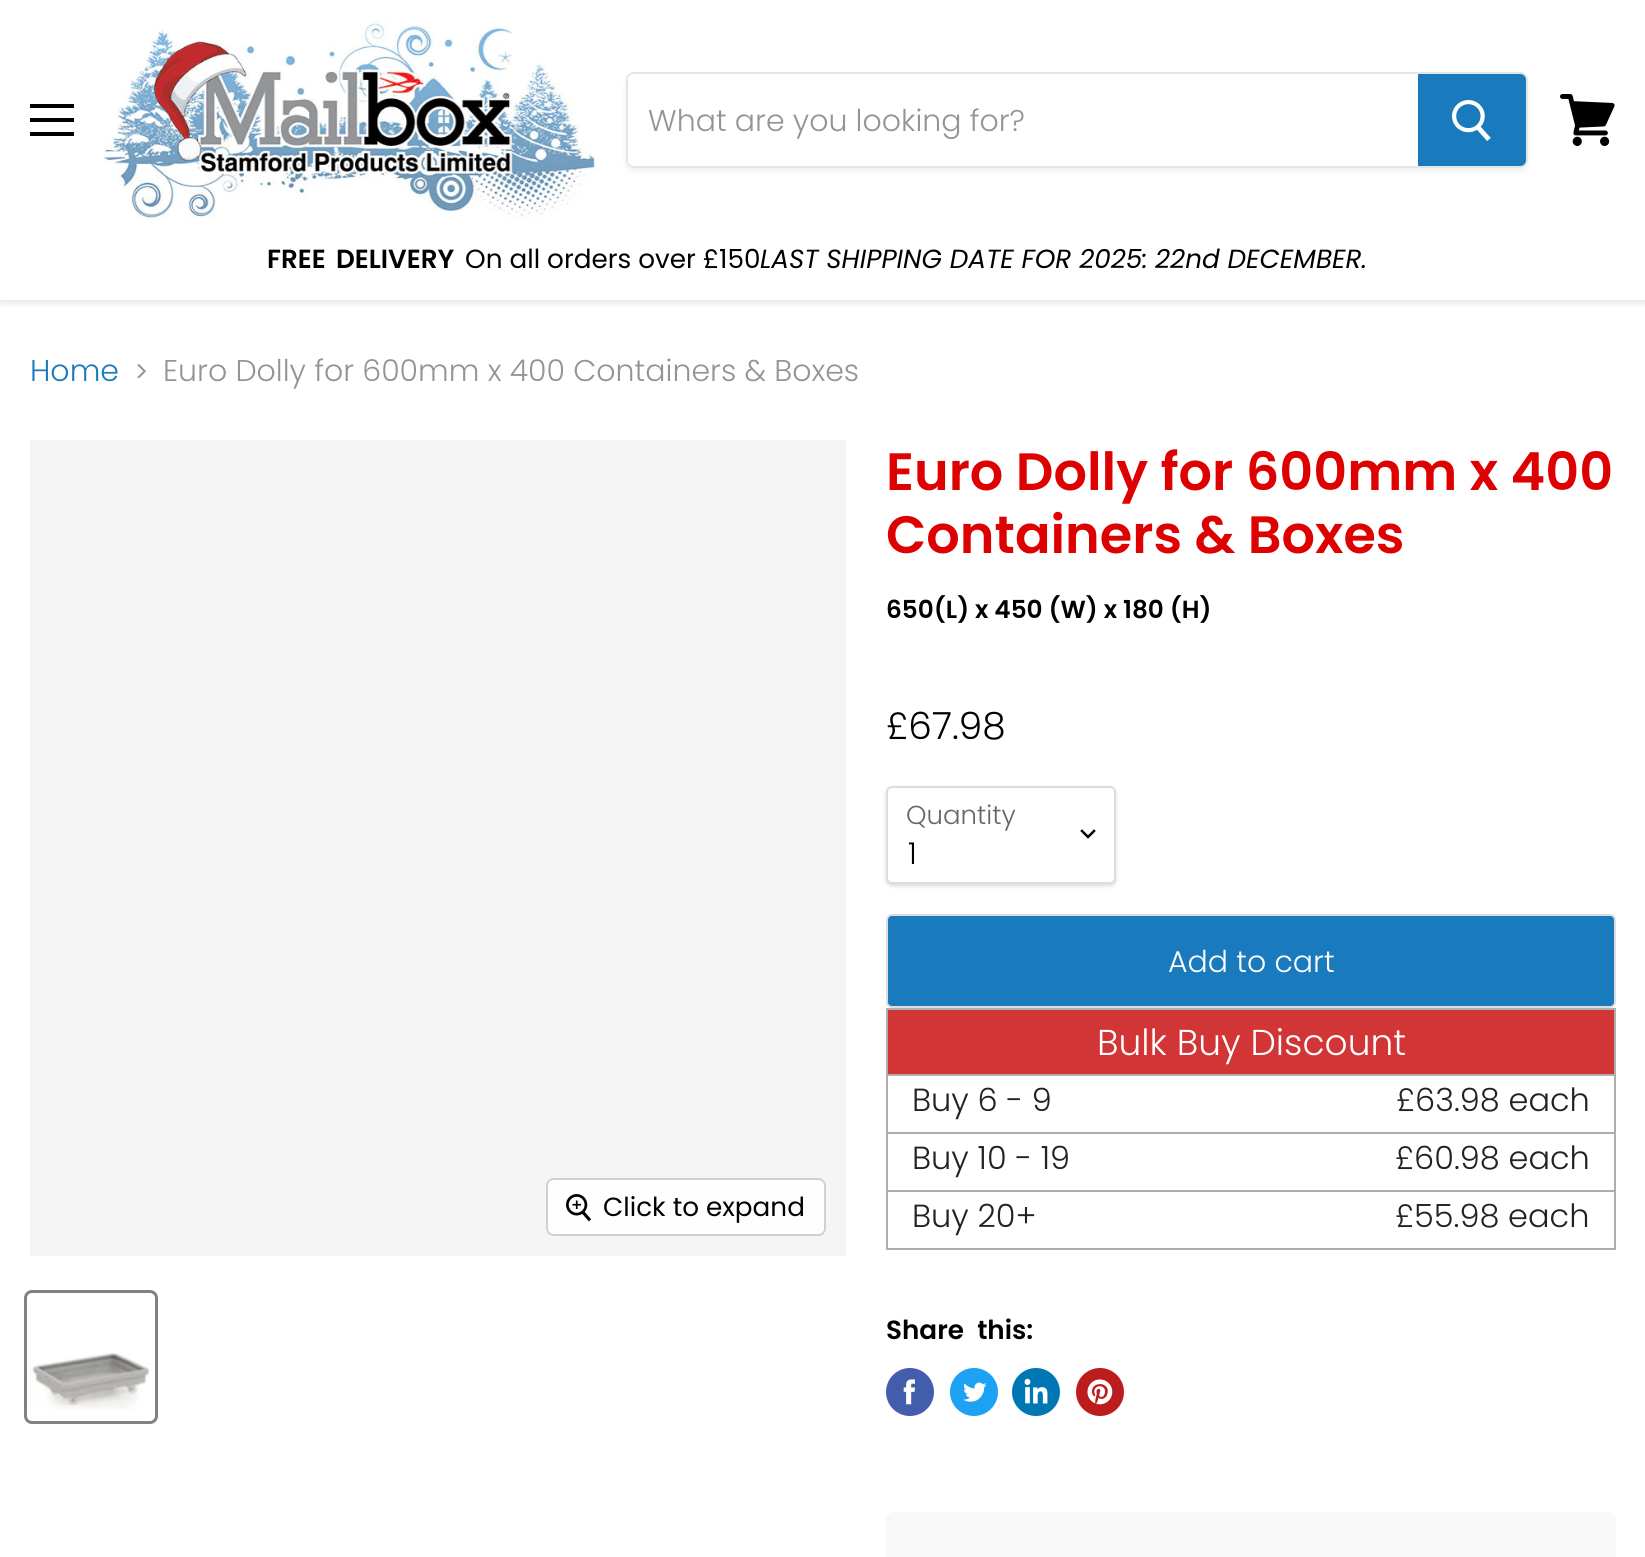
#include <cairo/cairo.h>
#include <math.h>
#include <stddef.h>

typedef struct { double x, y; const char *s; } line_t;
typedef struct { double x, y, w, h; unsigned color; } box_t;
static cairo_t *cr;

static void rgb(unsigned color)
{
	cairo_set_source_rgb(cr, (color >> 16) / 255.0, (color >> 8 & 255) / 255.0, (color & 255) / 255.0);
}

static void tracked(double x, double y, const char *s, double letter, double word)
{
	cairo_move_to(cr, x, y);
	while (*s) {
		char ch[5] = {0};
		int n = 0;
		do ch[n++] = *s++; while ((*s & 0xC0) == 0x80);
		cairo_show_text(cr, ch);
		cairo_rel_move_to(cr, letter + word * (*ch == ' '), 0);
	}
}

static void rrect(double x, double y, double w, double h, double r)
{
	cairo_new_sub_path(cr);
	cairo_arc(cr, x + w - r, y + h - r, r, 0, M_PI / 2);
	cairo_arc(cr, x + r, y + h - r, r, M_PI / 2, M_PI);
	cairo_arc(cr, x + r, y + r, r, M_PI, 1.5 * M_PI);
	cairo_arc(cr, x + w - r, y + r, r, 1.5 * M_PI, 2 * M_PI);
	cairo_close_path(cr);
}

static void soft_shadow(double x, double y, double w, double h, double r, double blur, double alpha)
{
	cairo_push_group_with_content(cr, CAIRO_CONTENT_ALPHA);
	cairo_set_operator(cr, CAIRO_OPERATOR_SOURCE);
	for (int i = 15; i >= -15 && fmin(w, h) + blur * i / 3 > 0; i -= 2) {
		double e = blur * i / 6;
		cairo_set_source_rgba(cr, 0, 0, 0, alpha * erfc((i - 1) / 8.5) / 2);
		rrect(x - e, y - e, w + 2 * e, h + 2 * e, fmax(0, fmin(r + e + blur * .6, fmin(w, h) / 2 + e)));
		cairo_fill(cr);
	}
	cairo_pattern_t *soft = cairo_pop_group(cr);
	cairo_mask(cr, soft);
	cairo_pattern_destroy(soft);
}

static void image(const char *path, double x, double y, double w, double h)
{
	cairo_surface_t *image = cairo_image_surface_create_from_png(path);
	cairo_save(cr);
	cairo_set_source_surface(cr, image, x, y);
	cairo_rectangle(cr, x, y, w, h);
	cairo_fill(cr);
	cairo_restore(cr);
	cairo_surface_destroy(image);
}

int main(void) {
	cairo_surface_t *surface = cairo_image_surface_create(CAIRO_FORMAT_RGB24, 1645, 1557);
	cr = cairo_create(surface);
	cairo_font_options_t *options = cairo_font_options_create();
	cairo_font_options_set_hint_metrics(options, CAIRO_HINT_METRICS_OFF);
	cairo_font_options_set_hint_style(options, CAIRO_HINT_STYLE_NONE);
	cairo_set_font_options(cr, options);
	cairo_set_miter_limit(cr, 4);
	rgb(0xffffff);
	cairo_paint(cr);
	cairo_save(cr);
	cairo_rectangle(cr, 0, 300, 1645, 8);
	cairo_clip(cr);
	rgb(0x808080);
	soft_shadow(0, 2, 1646, 300, 0, 4, 0.25);
	cairo_restore(cr);
	{
		static const box_t items[] = {
			{30, 104, 44, 4, 0x000000},
			{30, 118, 44, 4, 0x000000},
			{30, 132, 44, 4, 0x000000},
		};
		for (size_t i = 0; i < sizeof items / sizeof *items; i++) {
			rgb(items[i].color);
			cairo_rectangle(cr, items[i].x, items[i].y, items[i].w, items[i].h);
			cairo_fill(cr);
		}
	}
	image("img/1.png", 104, 20, 494, 200);
	cairo_save(cr);
	cairo_set_fill_rule(cr, CAIRO_FILL_RULE_EVEN_ODD);
	cairo_new_path(cr);
	cairo_move_to(cr, 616, 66);
	cairo_line_to(cr, 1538, 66);
	cairo_line_to(cr, 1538, 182);
	cairo_line_to(cr, 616, 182);
	cairo_close_path(cr);
	cairo_move_to(cr, 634, 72);
	cairo_line_to(cr, 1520, 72);
	cairo_curve_to(cr, 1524.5, 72, 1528, 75.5, 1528, 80);
	cairo_line_to(cr, 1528, 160);
	cairo_curve_to(cr, 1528, 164.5, 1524.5, 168, 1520, 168);
	cairo_line_to(cr, 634, 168);
	cairo_curve_to(cr, 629.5, 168, 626, 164.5, 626, 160);
	cairo_line_to(cr, 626, 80);
	cairo_curve_to(cr, 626, 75.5, 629.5, 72, 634, 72);
	cairo_close_path(cr);
	cairo_clip(cr);
	rgb(0x808080);
	soft_shadow(626, 76, 902, 96, 8, 3, 0.11);
	cairo_restore(cr);
	rrect(627, 73, 900, 94, 7);
	cairo_set_source_rgba(cr, 0.502, 0.502, 0.502, 0.2);
	cairo_stroke(cr);
	rgb(0xffffff);
	cairo_new_path(cr);
	cairo_move_to(cr, 634, 74);
	cairo_line_to(cr, 1418, 74);
	cairo_line_to(cr, 1418, 166);
	cairo_line_to(cr, 634, 166);
	cairo_curve_to(cr, 630.5, 166, 628, 163.5, 628, 160);
	cairo_line_to(cr, 628, 80);
	cairo_curve_to(cr, 628, 76.5, 630.5, 74, 634, 74);
	cairo_close_path(cr);
	cairo_fill(cr);
	rgb(0x197bbd);
	cairo_new_path(cr);
	cairo_move_to(cr, 1419, 75);
	cairo_line_to(cr, 1520, 75);
	cairo_curve_to(cr, 1523, 75, 1525, 77, 1525, 80);
	cairo_line_to(cr, 1525, 160);
	cairo_curve_to(cr, 1525, 163, 1523, 165, 1520, 165);
	cairo_line_to(cr, 1419, 165);
	cairo_close_path(cr);
	cairo_fill_preserve(cr);
	cairo_stroke(cr);
	image("img/2.png", 1452, 100, 39, 41);
	image("img/3.png", 1560, 94, 55, 52);
	image("img/4.png", 137, 363, 9, 16);
	rgb(0xf5f5f5);
	cairo_rectangle(cr, 30, 440, 816, 816);
	cairo_fill(cr);
	rrect(547, 1179, 278, 56, 7);
	rgb(0xd0d0d0);
	cairo_stroke(cr);
	cairo_set_source_rgba(cr, 1, 1, 1, 0.9);
	rrect(548, 1180, 276, 54, 6);
	cairo_fill(cr);
	image("img/5.png", 566, 1194, 26, 28);
	rrect(25.5, 1291.5, 131, 131, 6.5);
	rgb(0x818181);
	cairo_set_line_width(cr, 3);
	cairo_stroke(cr);
	image("img/6.png", 30, 1353, 120, 57);
	rgb(0x000000);
	soft_shadow(886, 788, 230, 98, 6, 2, 0.15);
	rgb(0xffffff);
	rrect(887, 787, 228, 96, 5);
	cairo_fill_preserve(cr);
	rgb(0xdddddd);
	cairo_set_line_width(cr, 2);
	cairo_stroke(cr);
	cairo_new_path(cr);
	cairo_move_to(cr, 1088, 837);
	cairo_line_to(cr, 1094, 831);
	cairo_move_to(cr, 1088, 837);
	cairo_line_to(cr, 1082, 831);
	rgb(0x000000);
	cairo_set_line_width(cr, 2.5);
	cairo_set_line_cap(cr, CAIRO_LINE_CAP_SQUARE);
	cairo_stroke(cr);
	rgb(0x197bbd);
	rrect(887, 915, 728, 92, 5);
	cairo_fill_preserve(cr);
	rgb(0xdddddd);
	cairo_set_line_width(cr, 2);
	cairo_set_line_cap(cr, CAIRO_LINE_CAP_BUTT);
	cairo_stroke(cr);
	cairo_rectangle(cr, 887, 1009, 728, 240);
	rgb(0xaeaeae);
	cairo_stroke(cr);
	{
		static const box_t items[] = {
			{888, 1010, 726, 64, 0xd23535},
			{888, 1074, 726, 2, 0xaeaeae},
			{888, 1132, 726, 2, 0xaeaeae},
			{888, 1190, 726, 2, 0xaeaeae},
		};
		for (size_t i = 0; i < sizeof items / sizeof *items; i++) {
			rgb(items[i].color);
			cairo_rectangle(cr, items[i].x, items[i].y, items[i].w, items[i].h);
			cairo_fill(cr);
		}
	}
	rgb(0x425dab);
	cairo_arc(cr, 910, 1392, 24, 0, 2 * M_PI);
	cairo_fill(cr);
	image("img/7.png", 903, 1379, 12, 26);
	rgb(0x1da1f2);
	cairo_arc(cr, 974, 1392, 24, 0, 2 * M_PI);
	cairo_fill(cr);
	image("img/8.png", 963, 1382, 24, 20);
	rgb(0x0077b5);
	cairo_arc(cr, 1036, 1392, 24, 0, 2 * M_PI);
	cairo_fill(cr);
	image("img/9.png", 1024, 1378, 24, 26);
	rgb(0xbd1c1c);
	cairo_arc(cr, 1100, 1392, 24, 0, 2 * M_PI);
	cairo_fill(cr);
	image("img/10.png", 1087, 1379, 26, 26);
	rgb(0xf8f8f8);
	rrect(886, 1512, 730, 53, 8);
	cairo_fill(cr);
	cairo_select_font_face(cr, "Poppins Light", CAIRO_FONT_SLANT_NORMAL, CAIRO_FONT_WEIGHT_NORMAL);
	cairo_set_font_size(cr, 30);
	rgb(0x949494);
	cairo_move_to(cr, 648, 131);
	cairo_show_text(cr, "What are you looking for?");
	cairo_select_font_face(cr, "Poppins SemiBold", CAIRO_FONT_SLANT_NORMAL, CAIRO_FONT_WEIGHT_NORMAL);
	cairo_set_font_size(cr, 26.25);
	rgb(0x000000);
	tracked(267, 268, "FREE DELIVERY", 0, 4);
	cairo_select_font_face(cr, "Poppins", CAIRO_FONT_SLANT_NORMAL, CAIRO_FONT_WEIGHT_NORMAL);
	cairo_move_to(cr, 465, 268);
	cairo_show_text(cr, "On all orders over £150");
	cairo_select_font_face(cr, "Poppins", CAIRO_FONT_SLANT_ITALIC, CAIRO_FONT_WEIGHT_NORMAL);
	cairo_move_to(cr, 760, 268);
	cairo_show_text(cr, "LAST SHIPPING DATE FOR 2025:");
	cairo_move_to(cr, 1155, 268);
	cairo_show_text(cr, "22nd DECEMBER.");
	cairo_select_font_face(cr, "Poppins Light", CAIRO_FONT_SLANT_NORMAL, CAIRO_FONT_WEIGHT_NORMAL);
	cairo_set_font_size(cr, 30);
	rgb(0x197bbd);
	cairo_move_to(cr, 30, 381);
	cairo_show_text(cr, "Home");
	rgb(0x949494);
	cairo_move_to(cr, 163, 381);
	cairo_show_text(cr, "Euro Dolly for 600mm x 400 Containers & Boxes");
	cairo_select_font_face(cr, "Poppins", CAIRO_FONT_SLANT_NORMAL, CAIRO_FONT_WEIGHT_NORMAL);
	cairo_set_font_size(cr, 26.25);
	rgb(0x000000);
	cairo_move_to(cr, 603, 1216);
	cairo_show_text(cr, "Click to expand");
	cairo_select_font_face(cr, "Poppins SemiBold", CAIRO_FONT_SLANT_NORMAL, CAIRO_FONT_WEIGHT_NORMAL);
	cairo_set_font_size(cr, 52.5);
	rgb(0xde0101);
	cairo_move_to(cr, 886, 490);
	cairo_show_text(cr, "Euro Dolly for 600mm x 400");
	cairo_move_to(cr, 886, 553);
	cairo_show_text(cr, "Containers & Boxes");
	cairo_set_font_size(cr, 24.75);
	rgb(0x000000);
	cairo_move_to(cr, 886, 618);
	cairo_show_text(cr, "650(L) x 450 (W) x 180 (H)");
	cairo_select_font_face(cr, "Poppins Light", CAIRO_FONT_SLANT_NORMAL, CAIRO_FONT_WEIGHT_NORMAL);
	cairo_set_font_size(cr, 37.5);
	cairo_move_to(cr, 886, 739);
	cairo_show_text(cr, "£67.98");
	cairo_set_font_size(cr, 26);
	rgb(0x666666);
	cairo_move_to(cr, 906, 824);
	cairo_show_text(cr, "Quantity");
	cairo_set_font_size(cr, 30);
	rgb(0x000000);
	cairo_move_to(cr, 908, 864);
	cairo_show_text(cr, "1");
	rgb(0xffffff);
	cairo_move_to(cr, 1168, 972);
	cairo_show_text(cr, "Add to cart");
	cairo_set_font_size(cr, 36);
	cairo_move_to(cr, 1097, 1055);
	cairo_show_text(cr, "Bulk Buy Discount");
	cairo_set_font_size(cr, 32);
	rgb(0x222222);
	{
		static const line_t items[] = {
			{912, 1111, "Buy 6 - 9"},
			{1396, 1111, "£63.98 each"},
			{912, 1169, "Buy 10 - 19"},
			{1395, 1169, "£60.98 each"},
			{912, 1227, "Buy 20+"},
			{1395, 1227, "£55.98 each"},
		};
		for (size_t i = 0; i < sizeof items / sizeof *items; i++) {
			cairo_move_to(cr, items[i].x, items[i].y);
			cairo_show_text(cr, items[i].s);
		}
	}
	cairo_select_font_face(cr, "Poppins SemiBold", CAIRO_FONT_SLANT_NORMAL, CAIRO_FONT_WEIGHT_NORMAL);
	cairo_set_font_size(cr, 26.25);
	rgb(0x000000);
	tracked(886, 1339, "Share this:", 0, 7);
	cairo_surface_write_to_png(surface, "page.png");
	cairo_font_options_destroy(options);
	cairo_destroy(cr);
	cairo_surface_destroy(surface);
	return 0;
}
